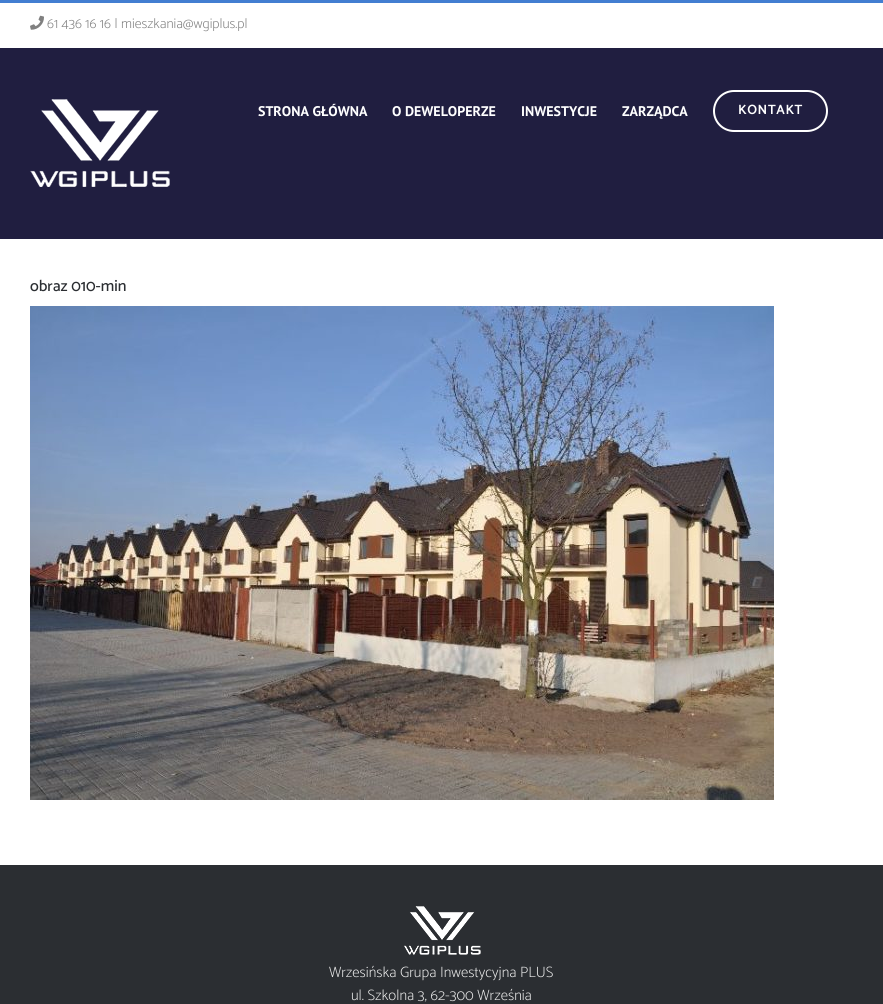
#include <cairo/cairo.h>
#include <math.h>
#include <stddef.h>

typedef struct { double x, y; const char *s; } line_t;
static cairo_t *cr;

static void rgb(unsigned color)
{
	cairo_set_source_rgb(cr, (color >> 16) / 255.0, (color >> 8 & 255) / 255.0, (color & 255) / 255.0);
}

static void tracked(double x, double y, const char *s, double letter, double word)
{
	cairo_move_to(cr, x, y);
	while (*s) {
		char ch[5] = {0};
		int n = 0;
		do ch[n++] = *s++; while ((*s & 0xC0) == 0x80);
		cairo_show_text(cr, ch);
		cairo_rel_move_to(cr, letter + word * (*ch == ' '), 0);
	}
}

static void rrect(double x, double y, double w, double h, double r)
{
	cairo_new_sub_path(cr);
	cairo_arc(cr, x + w - r, y + h - r, r, 0, M_PI / 2);
	cairo_arc(cr, x + r, y + h - r, r, M_PI / 2, M_PI);
	cairo_arc(cr, x + r, y + r, r, M_PI, 1.5 * M_PI);
	cairo_arc(cr, x + w - r, y + r, r, 1.5 * M_PI, 2 * M_PI);
	cairo_close_path(cr);
}

static void image(const char *path, double x, double y, double w, double h)
{
	cairo_surface_t *image = cairo_image_surface_create_from_png(path);
	cairo_save(cr);
	cairo_set_source_surface(cr, image, x, y);
	cairo_rectangle(cr, x, y, w, h);
	cairo_fill(cr);
	cairo_restore(cr);
	cairo_surface_destroy(image);
}

int main(void) {
	cairo_surface_t *surface = cairo_image_surface_create(CAIRO_FORMAT_RGB24, 883, 1004);
	cr = cairo_create(surface);
	cairo_font_options_t *options = cairo_font_options_create();
	cairo_font_options_set_hint_metrics(options, CAIRO_HINT_METRICS_OFF);
	cairo_font_options_set_hint_style(options, CAIRO_HINT_STYLE_NONE);
	cairo_set_font_options(cr, options);
	cairo_set_miter_limit(cr, 4);
	rgb(0xffffff);
	cairo_paint(cr);
	rgb(0x427ed1);
	cairo_rectangle(cr, 0, 0, 883, 3);
	cairo_fill(cr);
	image("img/1.png", 30, 15, 14, 15);
	rgb(0x201e40);
	cairo_rectangle(cr, 0, 48, 883, 191);
	cairo_fill(cr);
	image("img/2.png", 30, 99, 140, 88);
	rrect(714, 91, 113, 40, 20);
	rgb(0xffffff);
	cairo_stroke(cr);
	image("img/3.png", 30, 306, 744, 494);
	rgb(0x2b2e32);
	cairo_rectangle(cr, 0, 865, 883, 139);
	cairo_fill(cr);
	image("img/4.png", 404, 906, 77, 49);
	cairo_select_font_face(cr, "Catamaran ExtraLight", CAIRO_FONT_SLANT_NORMAL, CAIRO_FONT_WEIGHT_NORMAL);
	cairo_set_font_size(cr, 14);
	rgb(0x808080);
	cairo_move_to(cr, 47, 28);
	cairo_show_text(cr, "61 436 16 16 | mieszkania@wgiplus.pl");
	cairo_select_font_face(cr, "PT Sans", CAIRO_FONT_SLANT_NORMAL, CAIRO_FONT_WEIGHT_BOLD);
	rgb(0xffffff);
	{
		static const line_t items[] = {
			{258, 116, "STRONA GŁÓWNA"},
			{392, 116, "O DEWELOPERZE"},
			{521, 116, "INWESTYCJE"},
			{622, 116, "ZARZĄDCA"},
		};
		for (size_t i = 0; i < sizeof items / sizeof *items; i++) {
			cairo_move_to(cr, items[i].x, items[i].y);
			cairo_show_text(cr, items[i].s);
		}
	}
	cairo_select_font_face(cr, "Catamaran", CAIRO_FONT_SLANT_NORMAL, CAIRO_FONT_WEIGHT_BOLD);
	cairo_set_font_size(cr, 13);
	tracked(738, 114, "KONTAKT", 1, 0);
	cairo_select_font_face(cr, "Catamaran Medium", CAIRO_FONT_SLANT_NORMAL, CAIRO_FONT_WEIGHT_NORMAL);
	cairo_set_font_size(cr, 16);
	rgb(0x2b2e32);
	cairo_move_to(cr, 30, 291);
	cairo_show_text(cr, "obraz 010-min");
	cairo_select_font_face(cr, "Catamaran ExtraLight", CAIRO_FONT_SLANT_NORMAL, CAIRO_FONT_WEIGHT_NORMAL);
	cairo_set_font_size(cr, 15);
	rgb(0xeaeaea);
	cairo_move_to(cr, 329, 977);
	cairo_show_text(cr, "Wrzesińska Grupa Inwestycyjna PLUS");
	cairo_move_to(cr, 351, 1000);
	cairo_show_text(cr, "ul. Szkolna 3, 62-300 Września");
	cairo_surface_write_to_png(surface, "page.png");
	cairo_font_options_destroy(options);
	cairo_destroy(cr);
	cairo_surface_destroy(surface);
	return 0;
}
